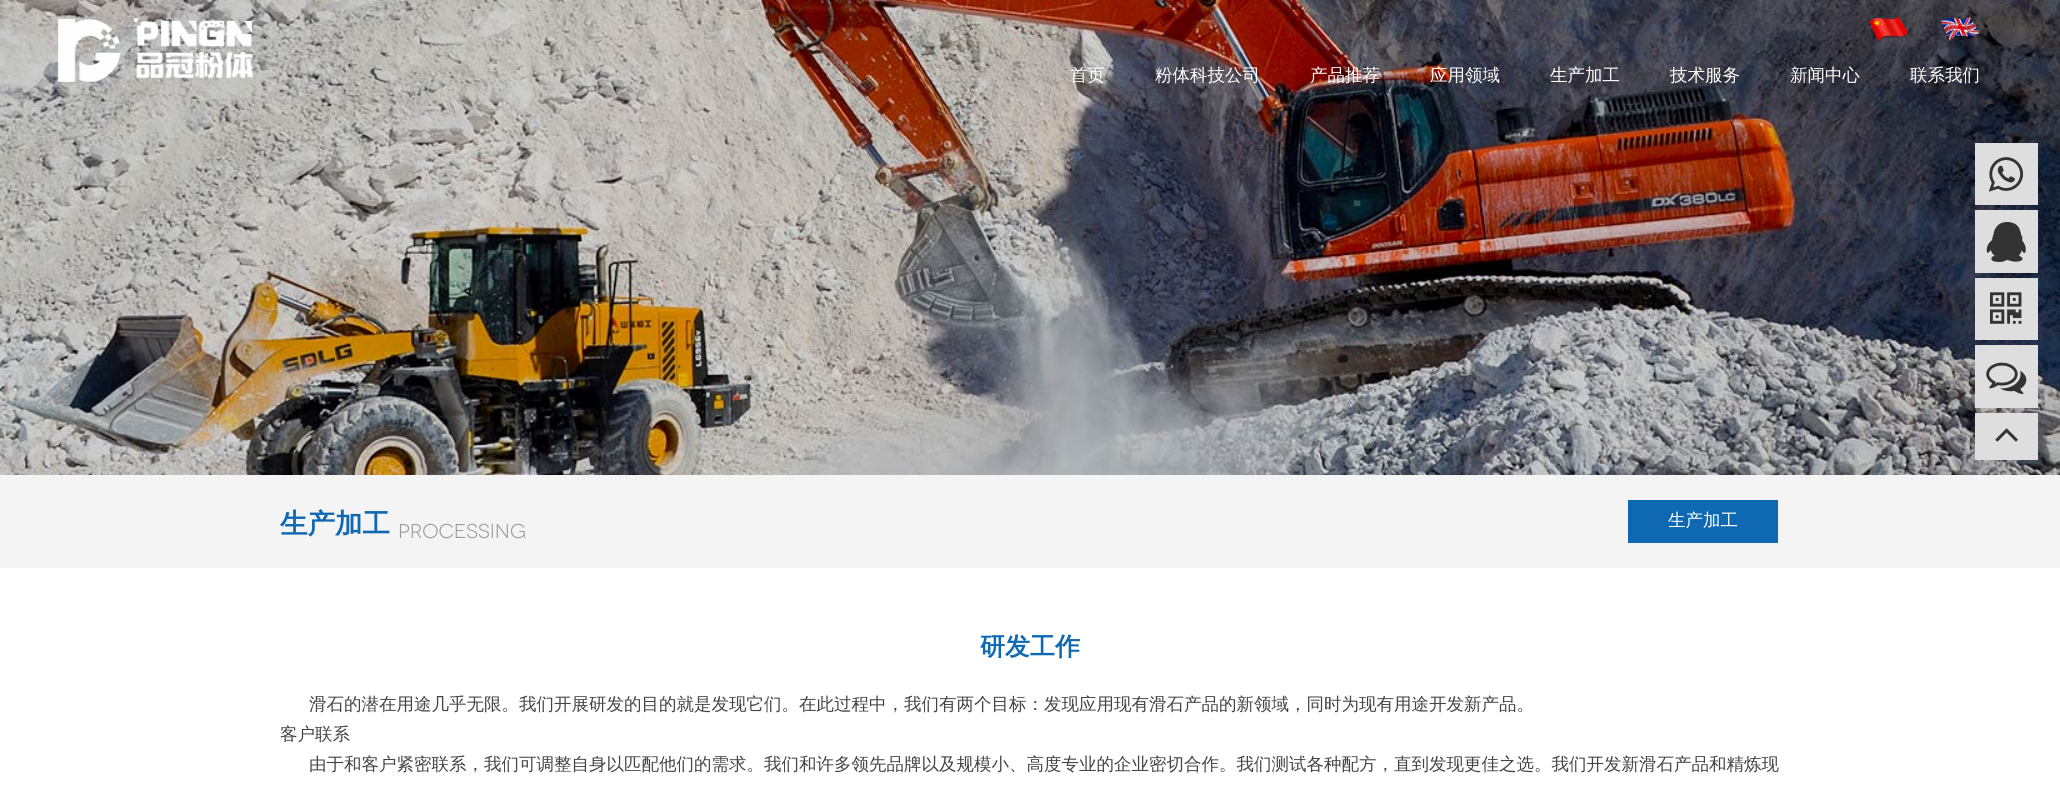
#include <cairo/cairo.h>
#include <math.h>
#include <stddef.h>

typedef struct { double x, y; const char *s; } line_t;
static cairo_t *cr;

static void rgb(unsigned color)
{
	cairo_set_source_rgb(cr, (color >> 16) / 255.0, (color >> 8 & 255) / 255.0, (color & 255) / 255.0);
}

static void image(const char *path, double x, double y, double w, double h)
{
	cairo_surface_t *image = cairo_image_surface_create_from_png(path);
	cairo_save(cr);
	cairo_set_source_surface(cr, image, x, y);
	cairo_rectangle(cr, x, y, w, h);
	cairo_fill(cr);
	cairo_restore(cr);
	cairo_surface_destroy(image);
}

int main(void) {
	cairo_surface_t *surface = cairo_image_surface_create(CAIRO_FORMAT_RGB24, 2060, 795);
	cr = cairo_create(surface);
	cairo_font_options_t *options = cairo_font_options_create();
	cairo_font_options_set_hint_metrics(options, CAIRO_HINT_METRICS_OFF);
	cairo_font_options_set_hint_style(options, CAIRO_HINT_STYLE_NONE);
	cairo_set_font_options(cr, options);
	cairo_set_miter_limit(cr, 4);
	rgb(0xffffff);
	cairo_paint(cr);
	image("img/1.png", 0, 0, 2060, 475);
	image("img/2.png", 57, 18, 196, 64);
	image("img/3.png", 1869, 16, 39, 26);
	image("img/4.png", 1940, 16, 40, 25);
	rgb(0xdedede);
	cairo_rectangle(cr, 1975, 143, 63, 62);
	cairo_fill(cr);
	image("img/5.png", 1988, 157, 35, 35);
	cairo_rectangle(cr, 1975, 210, 63, 63);
	cairo_fill(cr);
	image("img/6.png", 1986, 222, 40, 40);
	cairo_rectangle(cr, 1975, 278, 63, 62);
	cairo_fill(cr);
	image("img/7.png", 1990, 292, 32, 32);
	cairo_rectangle(cr, 1975, 345, 63, 63);
	cairo_fill(cr);
	image("img/8.png", 1986, 362, 41, 33);
	cairo_rectangle(cr, 1975, 413, 63, 47);
	cairo_fill(cr);
	image("img/9.png", 1995, 428, 23, 14);
	rgb(0xf4f4f4);
	cairo_rectangle(cr, 0, 475, 2060, 93);
	cairo_fill(cr);
	rgb(0x0e69b2);
	cairo_rectangle(cr, 1628, 500, 150, 43);
	cairo_fill(cr);
	cairo_select_font_face(cr, "WenQuanYi Zen Hei Medium", CAIRO_FONT_SLANT_NORMAL, CAIRO_FONT_WEIGHT_NORMAL);
	cairo_set_font_size(cr, 16);
	rgb(0xa9617b);
	cairo_move_to(cr, 1945, 34);
	cairo_show_text(cr, "英文");
	cairo_set_font_size(cr, 17.5);
	rgb(0xffffff);
	{
		static const line_t items[] = {
			{1070, 81, "首页"},
			{1155, 81, "粉体科技公司"},
			{1310, 81, "产品推荐"},
			{1430, 81, "应用领域"},
			{1550, 81, "生产加工"},
			{1670, 81, "技术服务"},
			{1790, 81, "新闻中心"},
			{1910, 81, "联系我们"},
		};
		for (size_t i = 0; i < sizeof items / sizeof *items; i++) {
			cairo_move_to(cr, items[i].x, items[i].y);
			cairo_show_text(cr, items[i].s);
		}
	}
	cairo_select_font_face(cr, "WenQuanYi Zen Hei", CAIRO_FONT_SLANT_NORMAL, CAIRO_FONT_WEIGHT_BOLD);
	cairo_set_font_size(cr, 27.5);
	rgb(0x0e69b2);
	cairo_move_to(cr, 280, 533);
	cairo_show_text(cr, "生产加工");
	cairo_select_font_face(cr, "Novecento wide", CAIRO_FONT_SLANT_NORMAL, CAIRO_FONT_WEIGHT_NORMAL);
	cairo_set_font_size(cr, 20);
	rgb(0x999999);
	cairo_move_to(cr, 398, 538);
	cairo_show_text(cr, "processing");
	cairo_select_font_face(cr, "WenQuanYi Zen Hei Medium", CAIRO_FONT_SLANT_NORMAL, CAIRO_FONT_WEIGHT_NORMAL);
	cairo_set_font_size(cr, 17.5);
	rgb(0xffffff);
	cairo_move_to(cr, 1668, 526);
	cairo_show_text(cr, "生产加工");
	cairo_select_font_face(cr, "WenQuanYi Zen Hei", CAIRO_FONT_SLANT_NORMAL, CAIRO_FONT_WEIGHT_BOLD);
	cairo_set_font_size(cr, 25);
	rgb(0x0e69b2);
	cairo_move_to(cr, 980, 655);
	cairo_show_text(cr, "研发工作");
	cairo_select_font_face(cr, "WenQuanYi Zen Hei Medium", CAIRO_FONT_SLANT_NORMAL, CAIRO_FONT_WEIGHT_NORMAL);
	cairo_set_font_size(cr, 17.5);
	rgb(0x444444);
	{
		static const line_t items[] = {
			{309, 710, "滑石的潜在用途几乎无限。我们开展研发的目的就是发现它们。在此过程中，我们有两个目标：发现应用现有滑石产品的新领域，同时为现有用途开发新产品。"},
			{280, 740, "客户联系"},
			{309, 770, "由于和客户紧密联系，我们可调整自身以匹配他们的需求。我们和许多领先品牌以及规模小、高度专业的企业密切合作。我们测试各种配方，直到发现更佳之选。我们开发新滑石产品和精炼现"},
		};
		for (size_t i = 0; i < sizeof items / sizeof *items; i++) {
			cairo_move_to(cr, items[i].x, items[i].y);
			cairo_show_text(cr, items[i].s);
		}
	}
	cairo_surface_write_to_png(surface, "page.png");
	cairo_font_options_destroy(options);
	cairo_destroy(cr);
	cairo_surface_destroy(surface);
	return 0;
}
